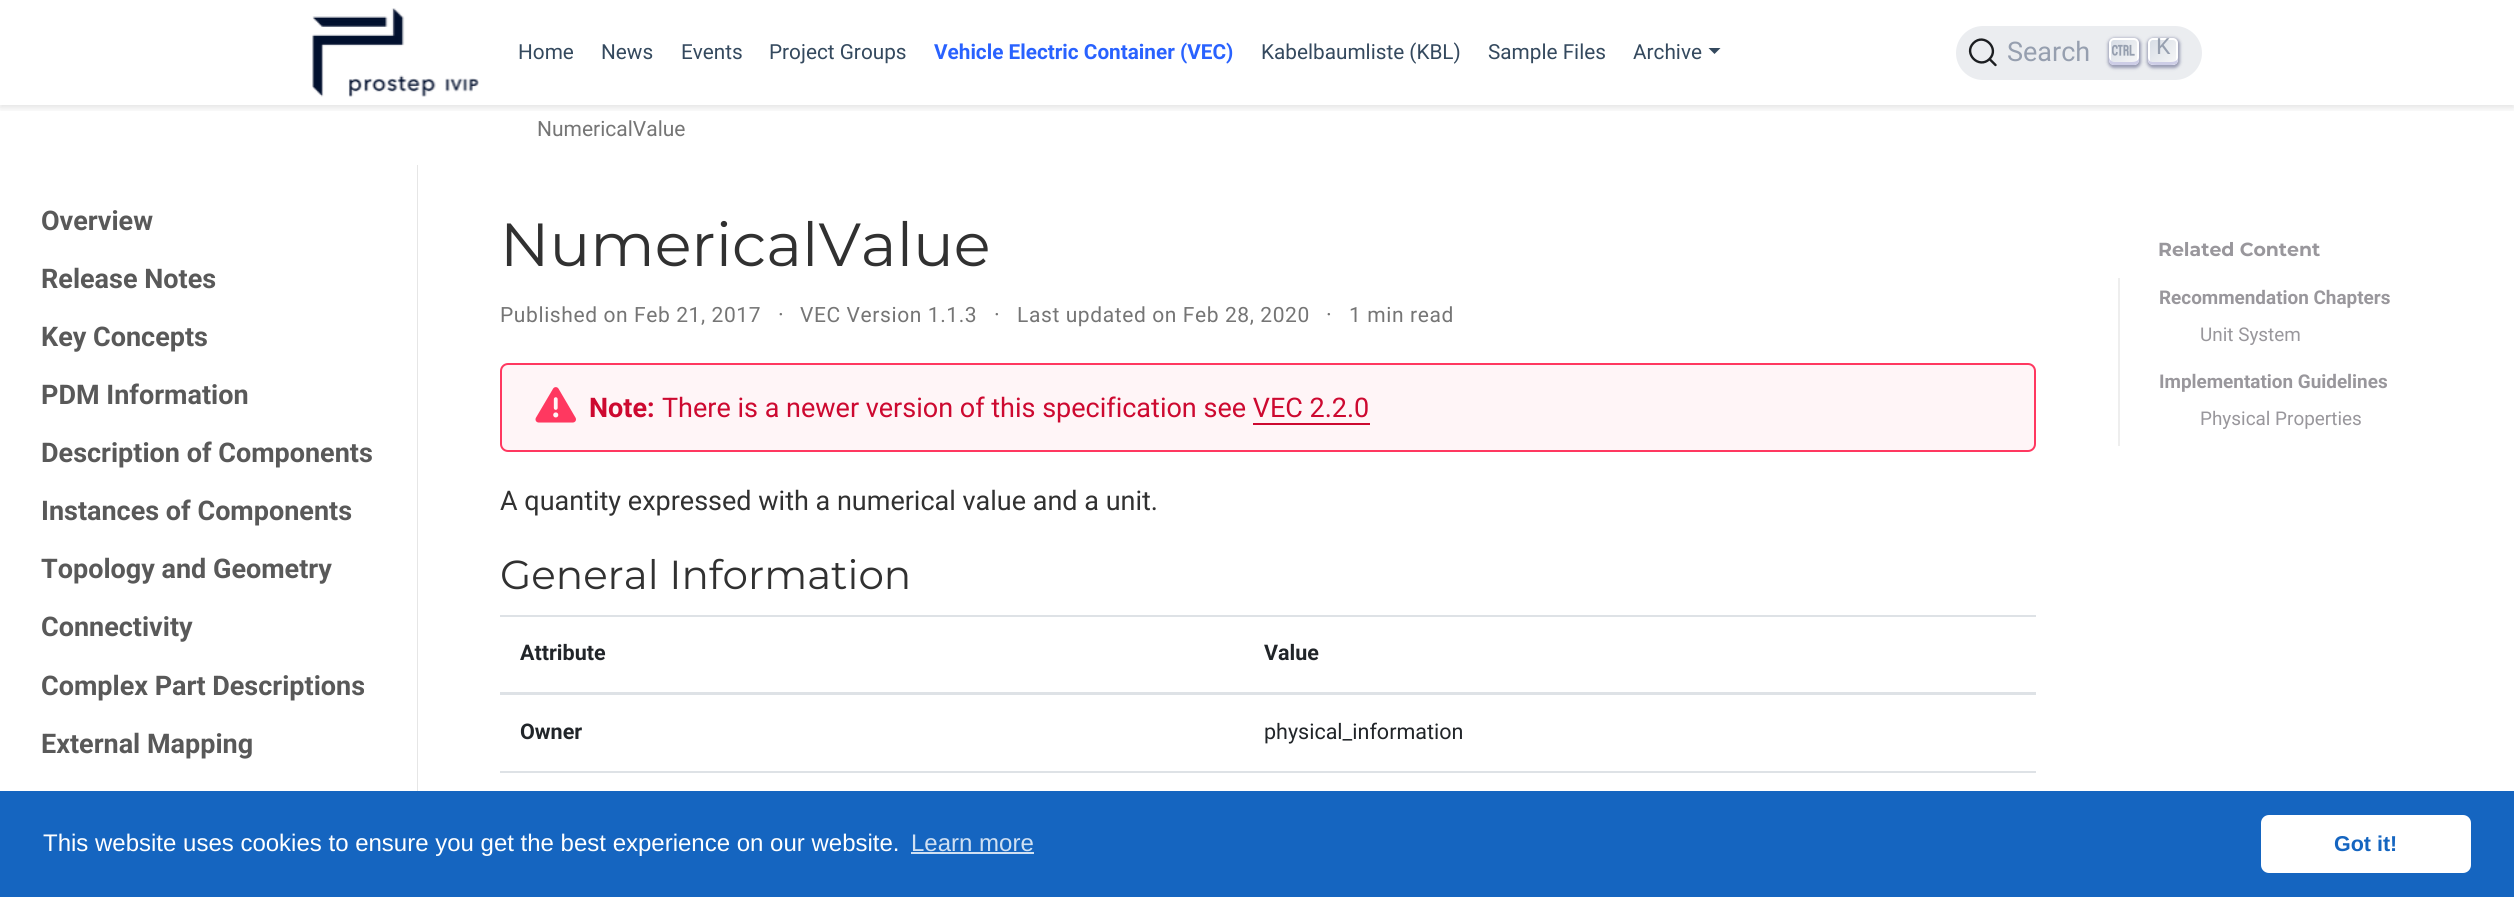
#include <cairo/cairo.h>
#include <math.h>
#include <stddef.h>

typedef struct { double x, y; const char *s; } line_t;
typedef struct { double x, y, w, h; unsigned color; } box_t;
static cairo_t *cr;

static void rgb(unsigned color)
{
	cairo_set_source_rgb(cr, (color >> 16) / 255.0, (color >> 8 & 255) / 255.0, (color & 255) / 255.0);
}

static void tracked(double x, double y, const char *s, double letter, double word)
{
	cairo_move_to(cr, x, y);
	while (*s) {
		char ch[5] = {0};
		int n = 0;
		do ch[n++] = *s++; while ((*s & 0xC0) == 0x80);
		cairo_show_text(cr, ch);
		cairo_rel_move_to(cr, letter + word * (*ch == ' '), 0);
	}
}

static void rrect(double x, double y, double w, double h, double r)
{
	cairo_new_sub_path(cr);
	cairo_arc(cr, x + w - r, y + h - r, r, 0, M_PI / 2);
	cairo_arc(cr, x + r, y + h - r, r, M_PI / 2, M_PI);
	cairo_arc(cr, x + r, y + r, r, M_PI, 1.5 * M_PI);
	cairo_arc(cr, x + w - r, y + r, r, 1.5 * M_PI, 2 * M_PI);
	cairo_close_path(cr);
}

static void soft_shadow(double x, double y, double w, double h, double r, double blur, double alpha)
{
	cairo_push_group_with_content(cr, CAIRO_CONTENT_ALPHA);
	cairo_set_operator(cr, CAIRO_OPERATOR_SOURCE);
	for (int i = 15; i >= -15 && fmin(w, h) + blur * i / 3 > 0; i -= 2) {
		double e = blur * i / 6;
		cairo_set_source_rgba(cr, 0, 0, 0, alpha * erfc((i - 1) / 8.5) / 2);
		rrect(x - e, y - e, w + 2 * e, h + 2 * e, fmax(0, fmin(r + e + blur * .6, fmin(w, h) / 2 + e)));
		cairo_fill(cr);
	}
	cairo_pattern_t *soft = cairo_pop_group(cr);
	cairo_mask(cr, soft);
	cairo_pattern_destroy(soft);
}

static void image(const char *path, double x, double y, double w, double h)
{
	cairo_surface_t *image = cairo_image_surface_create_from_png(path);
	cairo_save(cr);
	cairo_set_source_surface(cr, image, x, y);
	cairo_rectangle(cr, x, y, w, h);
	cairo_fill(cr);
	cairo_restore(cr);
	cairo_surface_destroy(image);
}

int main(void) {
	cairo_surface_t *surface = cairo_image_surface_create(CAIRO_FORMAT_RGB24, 2514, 897);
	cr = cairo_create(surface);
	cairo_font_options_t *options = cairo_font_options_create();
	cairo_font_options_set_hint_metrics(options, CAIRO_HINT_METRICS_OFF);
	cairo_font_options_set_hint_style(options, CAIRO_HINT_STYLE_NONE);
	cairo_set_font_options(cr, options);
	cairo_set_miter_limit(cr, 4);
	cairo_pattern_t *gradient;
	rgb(0xffffff);
	cairo_paint(cr);
	cairo_save(cr);
	cairo_rectangle(cr, 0, 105, 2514, 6);
	cairo_clip(cr);
	rgb(0x000000);
	soft_shadow(0, 3, 2514, 105, 0, 3.5, 0.11);
	cairo_restore(cr);
	image("img/1.png", 312, 8, 167, 89);
	rgb(0x34495e);
	cairo_new_path(cr);
	cairo_move_to(cr, 1708.5, 48);
	cairo_line_to(cr, 1720.5, 48);
	cairo_line_to(cr, 1714.5, 54);
	cairo_close_path(cr);
	cairo_fill(cr);
	rgb(0xebedf0);
	rrect(1956, 26, 246, 54, 27);
	cairo_fill(cr);
	cairo_new_path(cr);
	cairo_move_to(cr, 1989.5, 59);
	cairo_line_to(cr, 1995.5, 65);
	cairo_line_to(cr, 1989.5, 59);
	cairo_curve_to(cr, 1979, 69.5, 1963, 53.5, 1973.5, 43);
	cairo_curve_to(cr, 1984, 32.5, 2000, 48.5, 1989.5, 59);
	cairo_close_path(cr);
	rgb(0x1c1e21);
	cairo_set_line_width(cr, 2.4);
	cairo_set_line_cap(cr, CAIRO_LINE_CAP_ROUND);
	cairo_set_line_join(cr, CAIRO_LINE_JOIN_ROUND);
	cairo_stroke(cr);
	rgb(0x1e235a);
	soft_shadow(2108, 38, 33, 30, 6, 1.5, 0.4);
	gradient = cairo_pattern_create_linear(2110, 37, 2138, 65);
	cairo_pattern_add_color_stop_rgba(gradient, 0, 0.835, 0.859, 0.894, 1);
	cairo_pattern_add_color_stop_rgba(gradient, 1, 0.973, 0.973, 0.973, 1);
	cairo_set_source(cr, gradient);
	cairo_pattern_destroy(gradient);
	rrect(2110, 39, 28, 25, 4);
	cairo_fill_preserve(cr);
	rgb(0xffffff);
	cairo_set_line_width(cr, 2);
	cairo_set_line_cap(cr, CAIRO_LINE_CAP_BUTT);
	cairo_set_line_join(cr, CAIRO_LINE_JOIN_MITER);
	cairo_stroke(cr);
	rgb(0xcdcde6);
	cairo_new_path(cr);
	cairo_move_to(cr, 2139, 57.5);
	cairo_curve_to(cr, 2138.5, 60.5, 2136.5, 62, 2131, 62);
	cairo_line_to(cr, 2114, 62);
	cairo_curve_to(cr, 2111, 61.5, 2109.5, 59.5, 2109, 57);
	cairo_line_to(cr, 2109, 60);
	cairo_curve_to(cr, 2109, 63, 2111, 65, 2114, 65);
	cairo_line_to(cr, 2134, 65);
	cairo_curve_to(cr, 2137, 65, 2139, 63, 2139, 60);
	cairo_close_path(cr);
	cairo_fill(cr);
	image("img/2.png", 2112, 44, 23, 12);
	rgb(0x1e235a);
	soft_shadow(2147, 38, 33, 30, 6, 1.5, 0.4);
	gradient = cairo_pattern_create_linear(2149, 37, 2177, 65);
	cairo_pattern_add_color_stop_rgba(gradient, 0, 0.835, 0.859, 0.894, 1);
	cairo_pattern_add_color_stop_rgba(gradient, 1, 0.973, 0.973, 0.973, 1);
	cairo_set_source(cr, gradient);
	cairo_pattern_destroy(gradient);
	rrect(2149, 39, 28, 25, 4);
	cairo_fill_preserve(cr);
	rgb(0xffffff);
	cairo_stroke(cr);
	rgb(0xcdcde6);
	cairo_new_path(cr);
	cairo_move_to(cr, 2178, 57.5);
	cairo_curve_to(cr, 2177.5, 60.5, 2175.5, 62, 2170, 62);
	cairo_line_to(cr, 2152, 62);
	cairo_curve_to(cr, 2149.5, 61.5, 2148.5, 60, 2148, 58);
	cairo_curve_to(cr, 2148, 64.5, 2150, 65, 2156.5, 65);
	cairo_line_to(cr, 2169.5, 65);
	cairo_curve_to(cr, 2176.5, 65, 2178, 64, 2178, 57.5);
	cairo_close_path(cr);
	cairo_fill(cr);
	rgb(0xe6e6e6);
	cairo_new_path(cr);
	cairo_move_to(cr, 418, 165);
	cairo_line_to(cr, 418, 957);
	cairo_line_to(cr, 417, 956);
	cairo_line_to(cr, 417, 165);
	cairo_close_path(cr);
	cairo_fill(cr);
	rgb(0xfff5f7);
	rrect(501, 364, 1534, 87, 7);
	cairo_fill_preserve(cr);
	rgb(0xff3860);
	cairo_stroke(cr);
	image("img/3.png", 535, 387, 41, 36);
	{
		static const box_t items[] = {
			{1253, 423, 117, 2, 0xcd0930},
			{500, 615, 1536, 2, 0xdee2e6},
			{500, 692, 1536, 3, 0xdee2e6},
			{500, 771, 1536, 2, 0xdee2e6},
			{2118, 278, 2, 168, 0xeeeeee},
			{0, 791, 2514, 106, 0x1565c0},
			{911, 852, 123, 2, 0xd0e0f2},
		};
		for (size_t i = 0; i < sizeof items / sizeof *items; i++) {
			rgb(items[i].color);
			cairo_rectangle(cr, items[i].x, items[i].y, items[i].w, items[i].h);
			cairo_fill(cr);
		}
	}
	rgb(0xffffff);
	rrect(2261, 815, 210, 58, 8);
	cairo_fill(cr);
	cairo_select_font_face(cr, "Roboto", CAIRO_FONT_SLANT_NORMAL, CAIRO_FONT_WEIGHT_NORMAL);
	cairo_set_font_size(cr, 20.75);
	rgb(0x34495e);
	{
		static const line_t items[] = {
			{518, 59, "Home"},
			{601, 59, "News"},
			{681, 59, "Events"},
			{769, 59, "Project Groups"},
		};
		for (size_t i = 0; i < sizeof items / sizeof *items; i++) {
			cairo_move_to(cr, items[i].x, items[i].y);
			cairo_show_text(cr, items[i].s);
		}
	}
	cairo_select_font_face(cr, "Roboto", CAIRO_FONT_SLANT_NORMAL, CAIRO_FONT_WEIGHT_BOLD);
	rgb(0x2962ff);
	cairo_move_to(cr, 934, 59);
	cairo_show_text(cr, "Vehicle Electric Container (VEC)");
	cairo_select_font_face(cr, "Roboto", CAIRO_FONT_SLANT_NORMAL, CAIRO_FONT_WEIGHT_NORMAL);
	rgb(0x34495e);
	{
		static const line_t items[] = {
			{1261, 59, "Kabelbaumliste (KBL)"},
			{1488, 59, "Sample Files"},
			{1633, 59, "Archive"},
		};
		for (size_t i = 0; i < sizeof items / sizeof *items; i++) {
			cairo_move_to(cr, items[i].x, items[i].y);
			cairo_show_text(cr, items[i].s);
		}
	}
	cairo_set_font_size(cr, 27);
	rgb(0x969faf);
	cairo_move_to(cr, 2007, 61);
	cairo_show_text(cr, "Search");
	cairo_select_font_face(cr, "Liberation Mono", CAIRO_FONT_SLANT_NORMAL, CAIRO_FONT_WEIGHT_NORMAL);
	cairo_set_font_size(cr, 24);
	cairo_move_to(cr, 2156, 54);
	cairo_show_text(cr, "K");
	cairo_select_font_face(cr, "Roboto", CAIRO_FONT_SLANT_NORMAL, CAIRO_FONT_WEIGHT_NORMAL);
	cairo_set_font_size(cr, 21);
	rgb(0x757575);
	cairo_move_to(cr, 537, 136);
	cairo_show_text(cr, "NumericalValue");
	cairo_select_font_face(cr, "Roboto", CAIRO_FONT_SLANT_NORMAL, CAIRO_FONT_WEIGHT_BOLD);
	cairo_set_font_size(cr, 27);
	rgb(0x595959);
	{
		static const line_t items[] = {
			{41, 230, "Overview"},
			{41, 288, "Release Notes"},
			{41, 346, "Key Concepts"},
			{41, 404, "PDM Information"},
			{41, 462, "Description of Components"},
			{41, 520, "Instances of Components"},
			{41, 578, "Topology and Geometry"},
			{41, 636, "Connectivity"},
			{41, 695, "Complex Part Descriptions"},
			{41, 753, "External Mapping"},
		};
		for (size_t i = 0; i < sizeof items / sizeof *items; i++) {
			cairo_move_to(cr, items[i].x, items[i].y);
			cairo_show_text(cr, items[i].s);
		}
	}
	cairo_select_font_face(cr, "Montserrat", CAIRO_FONT_SLANT_NORMAL, CAIRO_FONT_WEIGHT_NORMAL);
	cairo_set_font_size(cr, 60.75);
	rgb(0x313131);
	cairo_move_to(cr, 500, 266);
	cairo_show_text(cr, "NumericalValue");
	cairo_select_font_face(cr, "Roboto", CAIRO_FONT_SLANT_NORMAL, CAIRO_FONT_WEIGHT_NORMAL);
	cairo_set_font_size(cr, 21);
	rgb(0x757575);
	tracked(500, 322, "Published on Feb 21, 2017", 0.6, 0);
	cairo_set_font_size(cr, 22);
	tracked(778, 322, "·", 0.6, 0);
	cairo_set_font_size(cr, 21);
	tracked(800, 322, "VEC Version 1.1.3", 0.6, 0);
	cairo_set_font_size(cr, 22);
	tracked(994, 322, "·", 0.6, 0);
	cairo_set_font_size(cr, 21);
	tracked(1017, 322, "Last updated on Feb 28, 2020", 0.6, 0);
	cairo_set_font_size(cr, 22);
	tracked(1326, 322, "·", 0.6, 0);
	cairo_set_font_size(cr, 21);
	tracked(1349, 322, "1 min read", 0.6, 0);
	cairo_select_font_face(cr, "Roboto", CAIRO_FONT_SLANT_NORMAL, CAIRO_FONT_WEIGHT_BOLD);
	cairo_set_font_size(cr, 27);
	rgb(0xcd0930);
	cairo_move_to(cr, 589, 417);
	cairo_show_text(cr, "Note:");
	cairo_select_font_face(cr, "Roboto", CAIRO_FONT_SLANT_NORMAL, CAIRO_FONT_WEIGHT_NORMAL);
	cairo_move_to(cr, 662, 417);
	cairo_show_text(cr, "There is a newer version of this specification see VEC 2.2.0");
	rgb(0x313131);
	cairo_move_to(cr, 500, 510);
	cairo_show_text(cr, "A quantity expressed with a numerical value and a unit.");
	cairo_select_font_face(cr, "Montserrat", CAIRO_FONT_SLANT_NORMAL, CAIRO_FONT_WEIGHT_NORMAL);
	cairo_set_font_size(cr, 40.5);
	cairo_move_to(cr, 500, 589);
	cairo_show_text(cr, "General Information");
	cairo_select_font_face(cr, "Roboto", CAIRO_FONT_SLANT_NORMAL, CAIRO_FONT_WEIGHT_BOLD);
	cairo_set_font_size(cr, 21.5);
	rgb(0x212529);
	{
		static const line_t items[] = {
			{520, 660, "Attribute"},
			{1264, 660, "Value"},
			{520, 739, "Owner"},
		};
		for (size_t i = 0; i < sizeof items / sizeof *items; i++) {
			cairo_move_to(cr, items[i].x, items[i].y);
			cairo_show_text(cr, items[i].s);
		}
	}
	cairo_select_font_face(cr, "Roboto", CAIRO_FONT_SLANT_NORMAL, CAIRO_FONT_WEIGHT_NORMAL);
	cairo_move_to(cr, 1264, 739);
	cairo_show_text(cr, "physical_information");
	cairo_select_font_face(cr, "Montserrat", CAIRO_FONT_SLANT_NORMAL, CAIRO_FONT_WEIGHT_BOLD);
	cairo_set_font_size(cr, 18.9);
	rgb(0x99979c);
	cairo_move_to(cr, 2158, 256);
	cairo_show_text(cr, "Related Content");
	cairo_select_font_face(cr, "Roboto", CAIRO_FONT_SLANT_NORMAL, CAIRO_FONT_WEIGHT_BOLD);
	cairo_move_to(cr, 2159, 304);
	cairo_show_text(cr, "Recommendation Chapters");
	cairo_select_font_face(cr, "Roboto", CAIRO_FONT_SLANT_NORMAL, CAIRO_FONT_WEIGHT_NORMAL);
	cairo_move_to(cr, 2200, 341);
	cairo_show_text(cr, "Unit System");
	cairo_select_font_face(cr, "Roboto", CAIRO_FONT_SLANT_NORMAL, CAIRO_FONT_WEIGHT_BOLD);
	cairo_move_to(cr, 2159, 388);
	cairo_show_text(cr, "Implementation Guidelines");
	cairo_select_font_face(cr, "Roboto", CAIRO_FONT_SLANT_NORMAL, CAIRO_FONT_WEIGHT_NORMAL);
	cairo_move_to(cr, 2200, 425);
	cairo_show_text(cr, "Physical Properties");
	cairo_select_font_face(cr, "Liberation Sans", CAIRO_FONT_SLANT_NORMAL, CAIRO_FONT_WEIGHT_NORMAL);
	cairo_set_font_size(cr, 24);
	rgb(0xffffff);
	cairo_move_to(cr, 43, 851);
	cairo_show_text(cr, "This website uses cookies to ensure you get the best experience on our website.");
	rgb(0xd0e0f2);
	cairo_move_to(cr, 911, 851);
	cairo_show_text(cr, "Learn more");
	cairo_select_font_face(cr, "Liberation Sans", CAIRO_FONT_SLANT_NORMAL, CAIRO_FONT_WEIGHT_BOLD);
	cairo_set_font_size(cr, 21.5);
	rgb(0x1565c0);
	cairo_move_to(cr, 2334, 851);
	cairo_show_text(cr, "Got it!");
	cairo_surface_write_to_png(surface, "page.png");
	cairo_font_options_destroy(options);
	cairo_destroy(cr);
	cairo_surface_destroy(surface);
	return 0;
}
